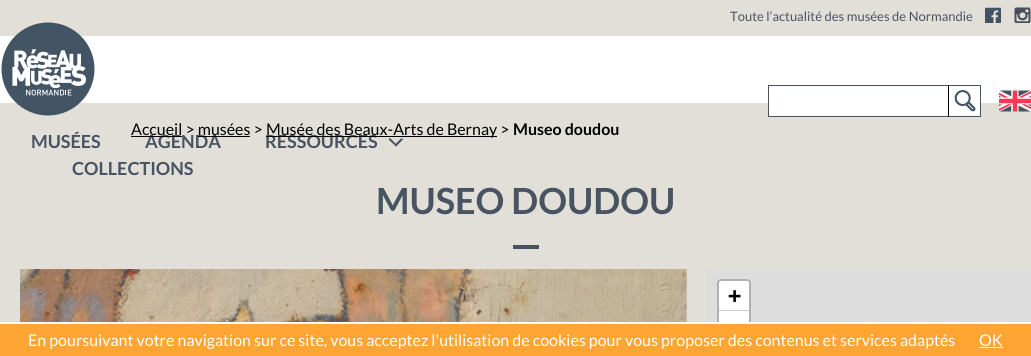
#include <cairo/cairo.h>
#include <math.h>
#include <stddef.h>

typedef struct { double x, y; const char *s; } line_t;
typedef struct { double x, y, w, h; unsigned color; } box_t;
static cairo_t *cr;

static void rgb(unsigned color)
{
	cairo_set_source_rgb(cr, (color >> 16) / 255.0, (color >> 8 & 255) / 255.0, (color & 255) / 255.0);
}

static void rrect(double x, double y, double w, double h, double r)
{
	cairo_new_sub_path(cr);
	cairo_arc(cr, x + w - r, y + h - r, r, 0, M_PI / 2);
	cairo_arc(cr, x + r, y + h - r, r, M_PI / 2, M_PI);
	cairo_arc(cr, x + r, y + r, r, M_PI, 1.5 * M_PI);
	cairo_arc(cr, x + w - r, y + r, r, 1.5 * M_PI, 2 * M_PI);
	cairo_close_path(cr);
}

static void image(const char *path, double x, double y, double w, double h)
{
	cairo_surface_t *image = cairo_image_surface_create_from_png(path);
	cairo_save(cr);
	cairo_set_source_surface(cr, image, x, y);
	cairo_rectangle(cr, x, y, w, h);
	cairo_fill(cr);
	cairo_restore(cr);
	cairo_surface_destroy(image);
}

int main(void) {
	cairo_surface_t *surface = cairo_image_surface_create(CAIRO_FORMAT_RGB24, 1031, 356);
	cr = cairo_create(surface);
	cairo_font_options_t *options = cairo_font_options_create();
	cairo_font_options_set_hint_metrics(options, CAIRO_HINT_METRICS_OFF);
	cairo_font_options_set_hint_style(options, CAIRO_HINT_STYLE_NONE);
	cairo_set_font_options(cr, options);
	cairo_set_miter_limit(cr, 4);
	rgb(0xe1dfd8);
	cairo_paint(cr);
	image("img/1.png", 985, 7, 16, 16);
	image("img/2.png", 1014, 7, 17, 16);
	rgb(0xffffff);
	cairo_rectangle(cr, 0, 36, 1031, 67);
	cairo_fill(cr);
	cairo_rectangle(cr, 769, 103, 211, 13);
	cairo_fill(cr);
	cairo_rectangle(cr, 768.5, 85.5, 212, 31);
	rgb(0x495463);
	cairo_set_line_width(cr, 1);
	cairo_stroke(cr);
	image("img/3.png", 954, 90, 22, 22);
	rgb(0x000000);
	cairo_rectangle(cr, 948, 85, 1, 32);
	cairo_fill(cr);
	image("img/4.png", 999, 90, 32, 22);
	image("img/5.png", 1, 22, 94, 94);
	rgb(0x495463);
	cairo_new_path(cr);
	cairo_move_to(cr, 401.5, 138);
	cairo_line_to(cr, 403, 139.5);
	cairo_line_to(cr, 396, 146.5);
	cairo_line_to(cr, 394.5, 145);
	cairo_close_path(cr);
	cairo_fill(cr);
	cairo_new_path(cr);
	cairo_move_to(cr, 390, 138);
	cairo_line_to(cr, 397, 145);
	cairo_line_to(cr, 396, 146.5);
	cairo_line_to(cr, 388.5, 139.5);
	cairo_close_path(cr);
	cairo_fill(cr);
	cairo_rectangle(cr, 513, 245, 26, 4);
	cairo_fill(cr);
	image("img/6.png", 20, 269, 667, 53);
	rgb(0xdddddd);
	cairo_rectangle(cr, 707, 269, 324, 53);
	cairo_fill(cr);
	rrect(718, 280, 32, 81, 3);
	rgb(0xb1b1b1);
	cairo_set_line_width(cr, 2);
	cairo_stroke(cr);
	rgb(0xffffff);
	cairo_new_path(cr);
	cairo_move_to(cr, 721, 281);
	cairo_line_to(cr, 747, 281);
	cairo_curve_to(cr, 748, 281, 749, 282, 749, 283);
	cairo_line_to(cr, 749, 311);
	cairo_line_to(cr, 719, 311);
	cairo_line_to(cr, 719, 283);
	cairo_curve_to(cr, 719, 282, 720, 281, 721, 281);
	cairo_close_path(cr);
	cairo_fill(cr);
	{
		static const box_t items[] = {
			{719, 310, 30, 1, 0xcccccc},
			{719, 311, 30, 11, 0xffffff},
			{0, 324, 1031, 32, 0xffa533},
			{0, 322, 1031, 2, 0xffffff},
			{979, 347, 24, 1, 0xffffff},
		};
		for (size_t i = 0; i < sizeof items / sizeof *items; i++) {
			rgb(items[i].color);
			cairo_rectangle(cr, items[i].x, items[i].y, items[i].w, items[i].h);
			cairo_fill(cr);
		}
	}
	cairo_select_font_face(cr, "Lato", CAIRO_FONT_SLANT_NORMAL, CAIRO_FONT_WEIGHT_NORMAL);
	cairo_set_font_size(cr, 13);
	rgb(0x495463);
	cairo_move_to(cr, 730, 21);
	cairo_show_text(cr, "Toute l’actualité des musées de Normandie");
	cairo_select_font_face(cr, "Lato", CAIRO_FONT_SLANT_NORMAL, CAIRO_FONT_WEIGHT_BOLD);
	cairo_set_font_size(cr, 18);
	{
		static const line_t items[] = {
			{31, 148, "MUSÉES"},
			{145, 148, "AGENDA"},
			{265, 148, "RESSOURCES"},
			{72, 175, "COLLECTIONS"},
		};
		for (size_t i = 0; i < sizeof items / sizeof *items; i++) {
			cairo_move_to(cr, items[i].x, items[i].y);
			cairo_show_text(cr, items[i].s);
		}
	}
	cairo_select_font_face(cr, "Lato", CAIRO_FONT_SLANT_NORMAL, CAIRO_FONT_WEIGHT_NORMAL);
	cairo_set_font_size(cr, 16);
	rgb(0x000000);
	cairo_move_to(cr, 131, 135);
	cairo_show_text(cr, "Accueil > musées >");
	cairo_rectangle(cr, 131, 136, 51, 1);
	cairo_fill(cr);
	cairo_rectangle(cr, 266, 136, 231, 1);
	cairo_fill(cr);
	cairo_move_to(cr, 266, 135);
	cairo_show_text(cr, "Musée des Beaux-Arts de Bernay >");
	cairo_select_font_face(cr, "Lato", CAIRO_FONT_SLANT_NORMAL, CAIRO_FONT_WEIGHT_BOLD);
	cairo_move_to(cr, 513, 135);
	cairo_show_text(cr, "Museo doudou");
	cairo_rectangle(cr, 198, 136, 52, 1);
	cairo_fill(cr);
	cairo_set_font_size(cr, 36);
	rgb(0x495463);
	cairo_move_to(cr, 376, 214);
	cairo_show_text(cr, "MUSEO DOUDOU");
	cairo_select_font_face(cr, "DejaVu Sans Mono", CAIRO_FONT_SLANT_NORMAL, CAIRO_FONT_WEIGHT_BOLD);
	cairo_set_font_size(cr, 22);
	rgb(0x000000);
	cairo_move_to(cr, 728, 303);
	cairo_show_text(cr, "+");
	cairo_select_font_face(cr, "Lato", CAIRO_FONT_SLANT_NORMAL, CAIRO_FONT_WEIGHT_NORMAL);
	cairo_set_font_size(cr, 16);
	rgb(0xffffff);
	cairo_move_to(cr, 28, 346);
	cairo_show_text(cr, "En poursuivant votre navigation sur ce site, vous acceptez l'utilisation de cookies pour vous proposer des contenus et services adaptés");
	cairo_move_to(cr, 979, 346);
	cairo_show_text(cr, "OK");
	cairo_surface_write_to_png(surface, "page.png");
	cairo_font_options_destroy(options);
	cairo_destroy(cr);
	cairo_surface_destroy(surface);
	return 0;
}
